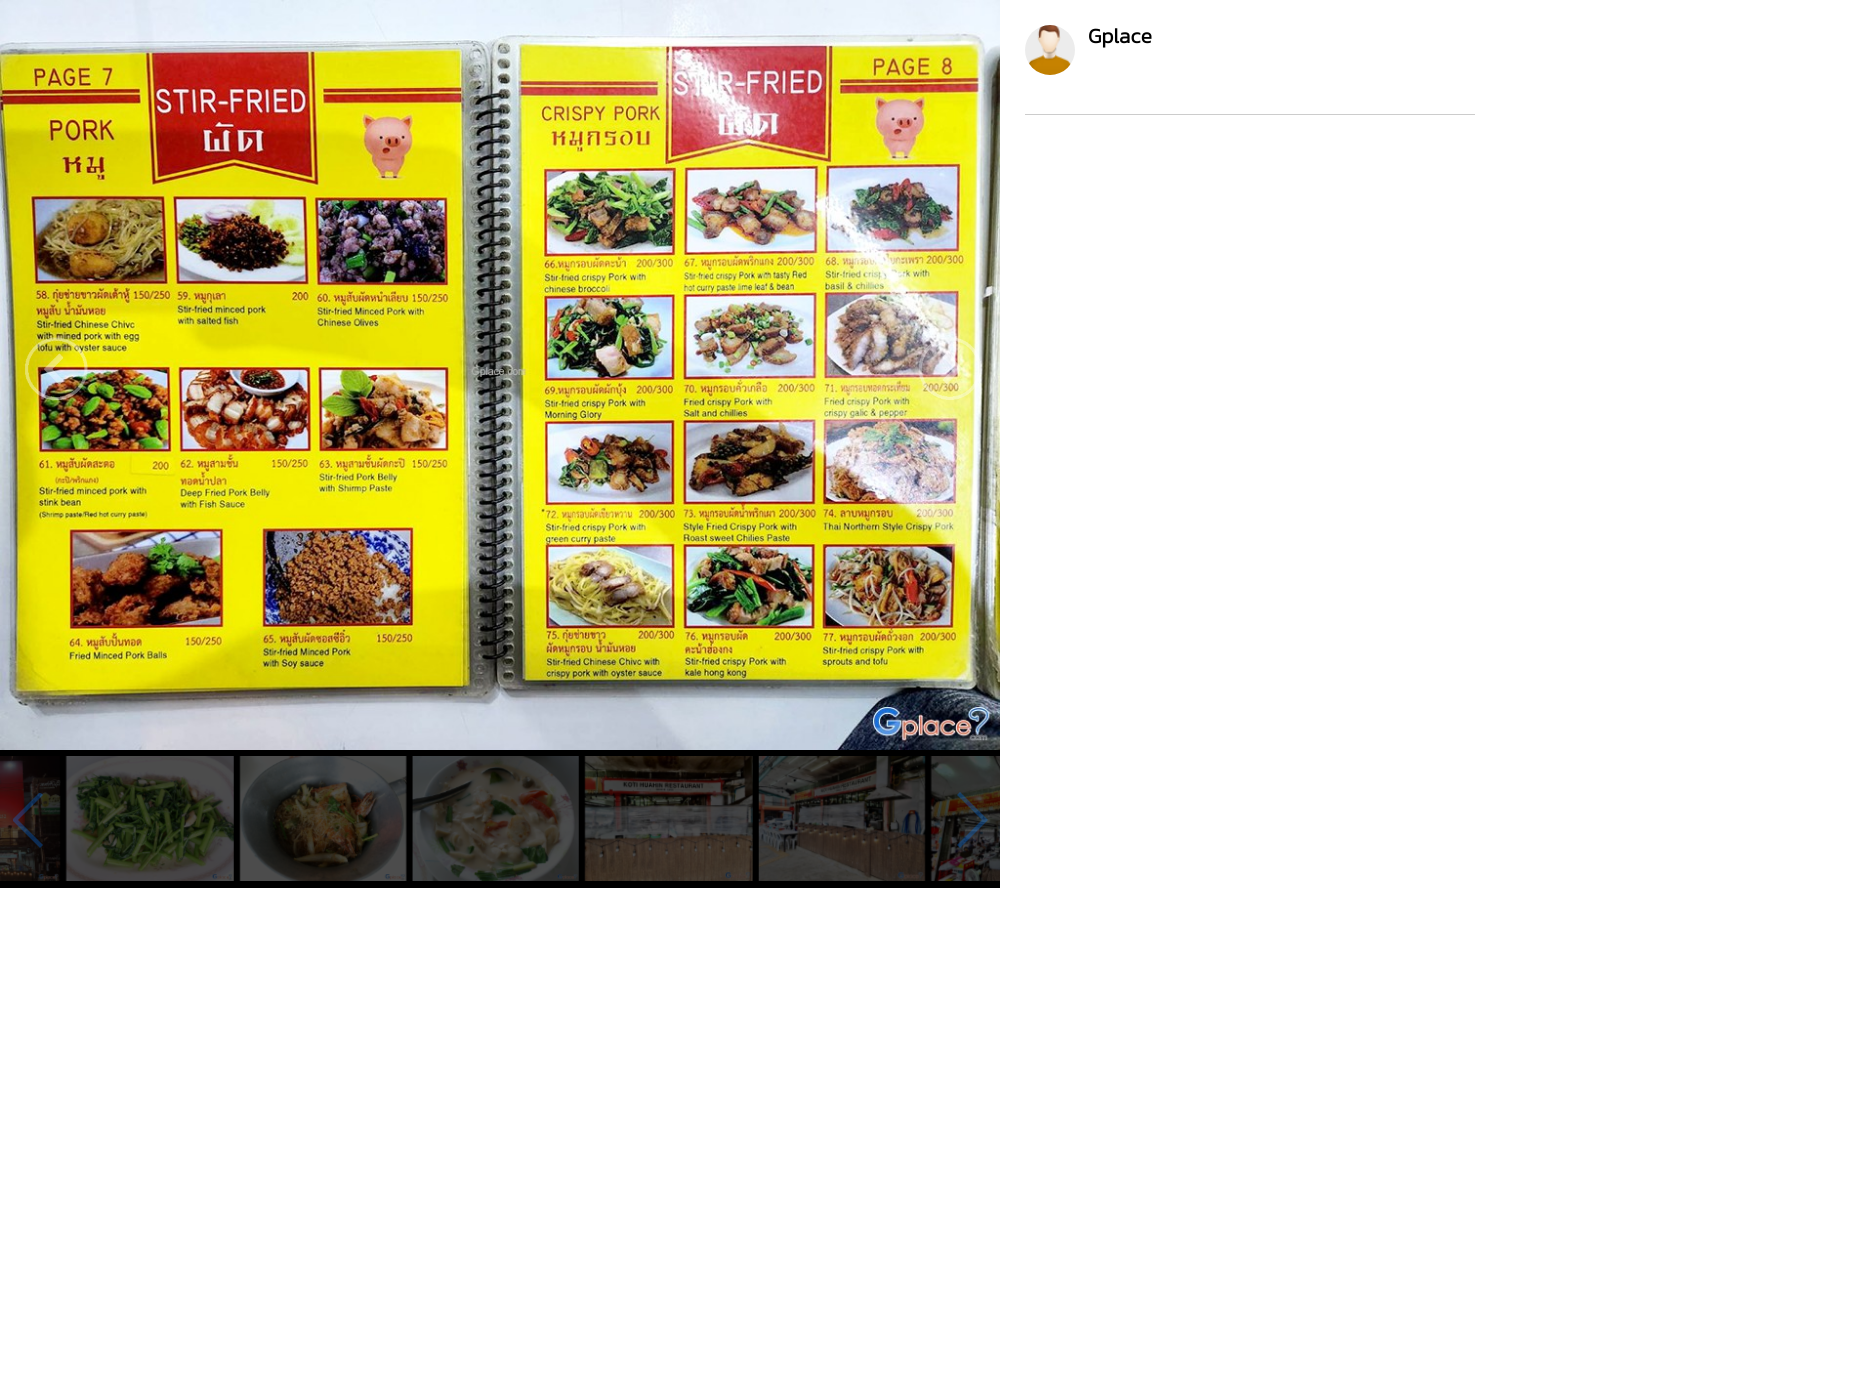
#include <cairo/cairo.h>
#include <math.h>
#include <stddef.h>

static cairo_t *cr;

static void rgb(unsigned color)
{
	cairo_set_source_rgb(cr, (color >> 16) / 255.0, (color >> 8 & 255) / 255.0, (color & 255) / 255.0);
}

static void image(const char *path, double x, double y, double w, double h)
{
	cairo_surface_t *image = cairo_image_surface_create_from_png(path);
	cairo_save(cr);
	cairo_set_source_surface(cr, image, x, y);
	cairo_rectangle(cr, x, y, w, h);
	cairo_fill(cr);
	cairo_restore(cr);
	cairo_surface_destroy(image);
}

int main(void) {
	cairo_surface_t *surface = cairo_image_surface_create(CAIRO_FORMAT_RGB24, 1874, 1396);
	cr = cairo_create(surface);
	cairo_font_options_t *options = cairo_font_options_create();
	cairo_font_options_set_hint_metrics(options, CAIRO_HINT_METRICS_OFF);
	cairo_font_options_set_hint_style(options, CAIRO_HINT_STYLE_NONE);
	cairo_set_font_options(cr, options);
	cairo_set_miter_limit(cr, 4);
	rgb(0xffffff);
	cairo_paint(cr);
	rgb(0x000000);
	cairo_rectangle(cr, 0, 750, 1000, 138);
	cairo_fill(cr);
	image("img/1.png", 0, 0, 1000, 750);
	image("img/2.png", 25, 337, 63, 63);
	image("img/3.png", 918, 337, 64, 63);
	image("img/4.png", 0, 756, 61, 125);
	image("img/5.png", 65, 756, 169, 125);
	image("img/6.png", 239, 756, 168, 125);
	image("img/7.png", 412, 756, 167, 125);
	image("img/8.png", 584, 756, 169, 125);
	image("img/9.png", 758, 756, 168, 125);
	image("img/10.png", 930, 756, 70, 125);
	cairo_save(cr);
	cairo_rectangle(cr, 13, 793, 33, 55);
	cairo_clip(cr);
	cairo_set_source_rgba(cr, 0, 0.478, 1, 0.3);
	cairo_new_path(cr);
	cairo_move_to(cr, 12, 820);
	cairo_line_to(cr, 40, 792);
	cairo_line_to(cr, 43, 795);
	cairo_line_to(cr, 18, 820);
	cairo_line_to(cr, 43, 845);
	cairo_line_to(cr, 40, 848);
	cairo_close_path(cr);
	cairo_fill(cr);
	cairo_restore(cr);
	cairo_set_source_rgba(cr, 0, 0.478, 1, 0.3);
	cairo_new_path(cr);
	cairo_move_to(cr, 988, 820);
	cairo_line_to(cr, 960, 848);
	cairo_line_to(cr, 957, 845);
	cairo_line_to(cr, 982, 820);
	cairo_line_to(cr, 957, 795);
	cairo_line_to(cr, 960, 792);
	cairo_close_path(cr);
	cairo_fill(cr);
	image("img/11.png", 1025, 25, 50, 50);
	rgb(0xcccccc);
	cairo_rectangle(cr, 1025, 114, 450, 1);
	cairo_fill(cr);
	cairo_select_font_face(cr, "Kanit", CAIRO_FONT_SLANT_NORMAL, CAIRO_FONT_WEIGHT_BOLD);
	cairo_set_font_size(cr, 21);
	rgb(0x000000);
	cairo_move_to(cr, 1088, 43);
	cairo_show_text(cr, "Gplace");
	cairo_surface_write_to_png(surface, "page.png");
	cairo_font_options_destroy(options);
	cairo_destroy(cr);
	cairo_surface_destroy(surface);
	return 0;
}
